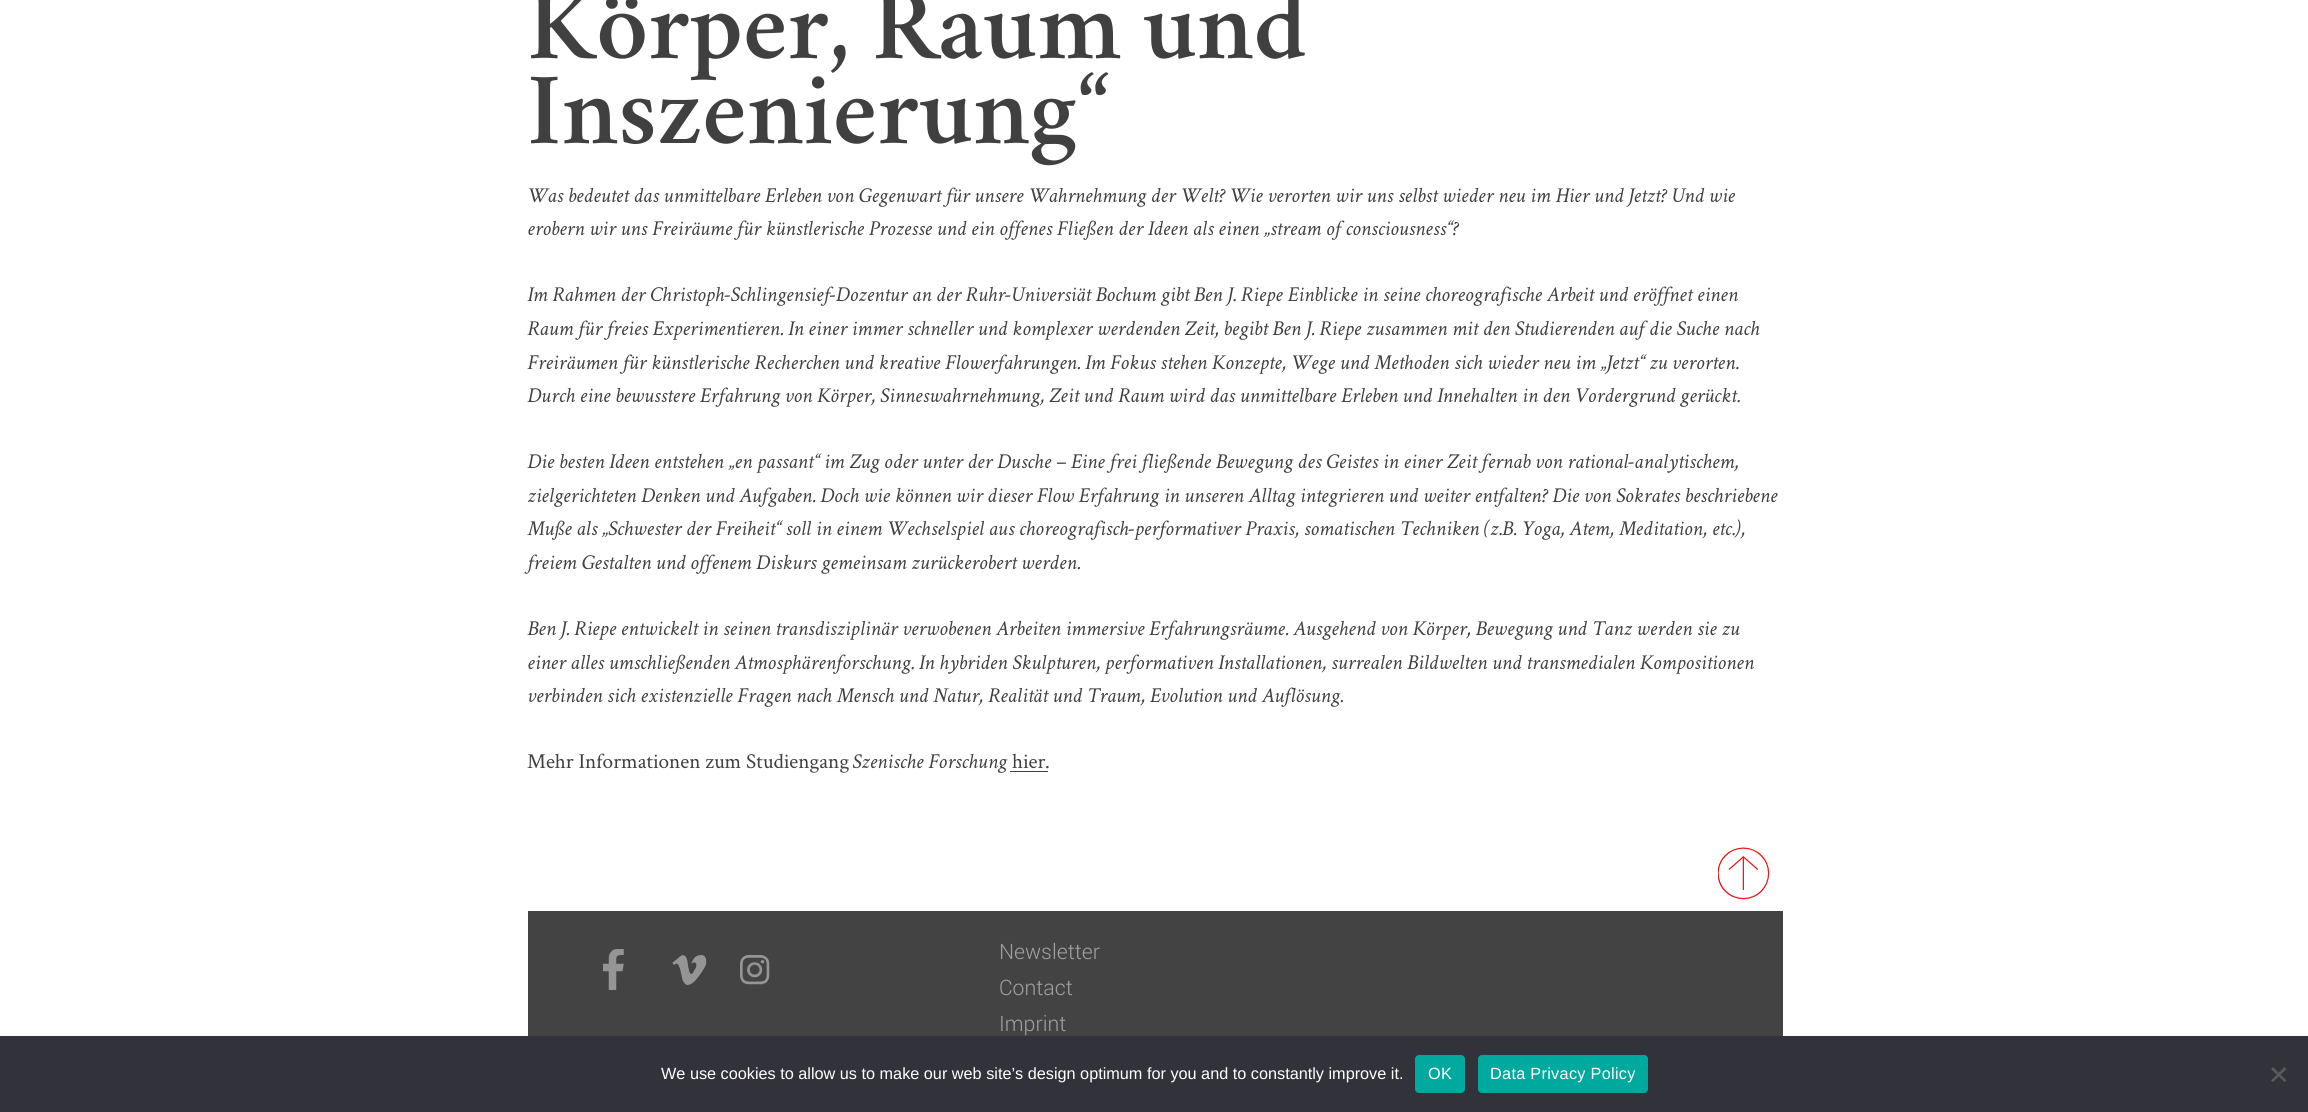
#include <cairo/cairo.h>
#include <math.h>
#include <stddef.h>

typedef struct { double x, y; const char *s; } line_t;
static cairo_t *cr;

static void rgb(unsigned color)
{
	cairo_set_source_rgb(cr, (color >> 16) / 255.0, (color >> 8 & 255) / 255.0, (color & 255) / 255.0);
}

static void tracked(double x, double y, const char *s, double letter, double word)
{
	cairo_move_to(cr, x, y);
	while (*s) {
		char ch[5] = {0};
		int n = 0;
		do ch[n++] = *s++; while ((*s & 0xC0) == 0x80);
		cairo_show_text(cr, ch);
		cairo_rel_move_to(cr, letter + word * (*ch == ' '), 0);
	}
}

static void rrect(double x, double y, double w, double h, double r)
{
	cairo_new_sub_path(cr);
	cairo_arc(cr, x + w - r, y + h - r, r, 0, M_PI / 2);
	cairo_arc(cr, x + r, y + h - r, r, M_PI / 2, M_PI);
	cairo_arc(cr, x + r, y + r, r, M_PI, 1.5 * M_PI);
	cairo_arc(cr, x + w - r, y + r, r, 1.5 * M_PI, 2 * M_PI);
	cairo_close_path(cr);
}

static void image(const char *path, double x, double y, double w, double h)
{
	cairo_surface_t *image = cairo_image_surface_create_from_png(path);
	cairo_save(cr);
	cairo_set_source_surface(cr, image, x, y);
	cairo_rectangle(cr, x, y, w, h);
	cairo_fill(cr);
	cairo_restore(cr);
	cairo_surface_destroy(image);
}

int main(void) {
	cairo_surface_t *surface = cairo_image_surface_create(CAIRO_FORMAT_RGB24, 2308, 1112);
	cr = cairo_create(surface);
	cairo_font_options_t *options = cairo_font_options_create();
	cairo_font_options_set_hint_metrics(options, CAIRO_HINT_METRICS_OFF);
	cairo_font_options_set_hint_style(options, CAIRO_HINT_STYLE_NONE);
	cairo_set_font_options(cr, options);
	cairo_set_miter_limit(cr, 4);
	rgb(0xffffff);
	cairo_paint(cr);
	rgb(0x404040);
	cairo_rectangle(cr, 1010, 771, 38, 1);
	cairo_fill(cr);
	rgb(0x434343);
	cairo_rectangle(cr, 528, 911, 1255, 125);
	cairo_fill(cr);
	image("img/1.png", 1718, 847, 52, 53);
	image("img/2.png", 603, 949, 21, 41);
	image("img/3.png", 672, 955, 35, 30);
	image("img/4.png", 740, 955, 30, 30);
	rgb(0x32323a);
	cairo_rectangle(cr, 0, 1036, 2308, 76);
	cairo_fill(cr);
	rgb(0x00a99d);
	rrect(1415, 1055, 50, 38, 4);
	cairo_fill(cr);
	rrect(1478, 1055, 170, 38, 4);
	cairo_fill(cr);
	rgb(0x59595d);
	cairo_new_path(cr);
	cairo_move_to(cr, 2284.5, 1067);
	cairo_line_to(cr, 2286.5, 1069);
	cairo_line_to(cr, 2273, 1082);
	cairo_line_to(cr, 2271, 1080.5);
	cairo_close_path(cr);
	cairo_fill(cr);
	cairo_new_path(cr);
	cairo_move_to(cr, 2271, 1069);
	cairo_line_to(cr, 2273, 1067);
	cairo_line_to(cr, 2286.5, 1080.5);
	cairo_line_to(cr, 2284.5, 1082);
	cairo_close_path(cr);
	cairo_fill(cr);
	cairo_select_font_face(cr, "Crimson Text SemiBold", CAIRO_FONT_SLANT_NORMAL, CAIRO_FONT_WEIGHT_NORMAL);
	cairo_set_font_size(cr, 90);
	rgb(0x404040);
	cairo_move_to(cr, 527, 58);
	cairo_show_text(cr, "Körper, Raum und");
	cairo_move_to(cr, 527, 143);
	cairo_show_text(cr, "Inszenierung“");
	cairo_select_font_face(cr, "Crimson Text", CAIRO_FONT_SLANT_ITALIC, CAIRO_FONT_WEIGHT_NORMAL);
	cairo_set_font_size(cr, 21.25);
	{
		static const line_t items[] = {
			{527, 202, "Was bedeutet das unmittelbare Erleben von Gegenwart für unsere Wahrnehmung der Welt? Wie verorten wir uns selbst wieder neu im Hier und Jetzt? Und wie"},
			{527, 235, "erobern wir uns Freiräume für künstlerische Prozesse und ein offenes Fließen der Ideen als einen „stream of consciousness“?"},
			{527, 301, "Im Rahmen der Christoph-Schlingensief-Dozentur an der Ruhr-Universiät Bochum gibt Ben J. Riepe Einblicke in seine choreografische Arbeit und eröffnet einen"},
			{527, 335, "Raum für freies Experimentieren. In einer immer schneller und komplexer werdenden Zeit, begibt Ben J. Riepe zusammen mit den Studierenden auf die Suche nach"},
			{527, 369, "Freiräumen für künstlerische Recherchen und kreative Flowerfahrungen. Im Fokus stehen Konzepte, Wege und Methoden sich wieder neu im „Jetzt“ zu verorten."},
			{527, 402, "Durch eine bewusstere Erfahrung von Körper, Sinneswahrnehmung, Zeit und Raum wird das unmittelbare Erleben und Innehalten in den Vordergrund gerückt."},
			{527, 468, "Die besten Ideen entstehen „en passant“ im Zug oder unter der Dusche – Eine frei fließende Bewegung des Geistes in einer Zeit fernab von rational-analytischem,"},
			{527, 502, "zielgerichteten Denken und Aufgaben. Doch wie können wir dieser Flow Erfahrung in unseren Alltag integrieren und weiter entfalten? Die von Sokrates beschriebene"},
			{527, 535, "Muße als „Schwester der Freiheit“ soll in einem Wechselspiel aus choreografisch-performativer Praxis, somatischen Techniken (z.B. Yoga, Atem, Meditation, etc.),"},
			{527, 569, "freiem Gestalten und offenem Diskurs gemeinsam zurückerobert werden."},
			{527, 635, "Ben J. Riepe entwickelt in seinen transdisziplinär verwobenen Arbeiten immersive Erfahrungsräume. Ausgehend von Körper, Bewegung und Tanz werden sie zu"},
			{527, 669, "einer alles umschließenden Atmosphärenforschung. In hybriden Skulpturen, performativen Installationen, surrealen Bildwelten und transmedialen Kompositionen"},
			{527, 702, "verbinden sich existenzielle Fragen nach Mensch und Natur, Realität und Traum, Evolution und Auflösung."},
		};
		for (size_t i = 0; i < sizeof items / sizeof *items; i++) {
			cairo_move_to(cr, items[i].x, items[i].y);
			cairo_show_text(cr, items[i].s);
		}
	}
	cairo_select_font_face(cr, "Crimson Text", CAIRO_FONT_SLANT_NORMAL, CAIRO_FONT_WEIGHT_NORMAL);
	cairo_move_to(cr, 527, 768);
	cairo_show_text(cr, "Mehr Informationen zum Studiengang");
	cairo_select_font_face(cr, "Crimson Text", CAIRO_FONT_SLANT_ITALIC, CAIRO_FONT_WEIGHT_NORMAL);
	cairo_move_to(cr, 852, 768);
	cairo_show_text(cr, "Szenische Forschung");
	cairo_select_font_face(cr, "Crimson Text", CAIRO_FONT_SLANT_NORMAL, CAIRO_FONT_WEIGHT_NORMAL);
	cairo_move_to(cr, 1012, 768);
	cairo_show_text(cr, "hier");
	cairo_move_to(cr, 1045, 768);
	cairo_show_text(cr, ".");
	cairo_select_font_face(cr, "Roboto Light", CAIRO_FONT_SLANT_NORMAL, CAIRO_FONT_WEIGHT_NORMAL);
	rgb(0xa1a1a1);
	{
		static const line_t items[] = {
			{999, 959, "Newsletter"},
			{999, 995, "Contact"},
			{999, 1031, "Imprint"},
		};
		for (size_t i = 0; i < sizeof items / sizeof *items; i++) {
			cairo_move_to(cr, items[i].x, items[i].y);
			cairo_show_text(cr, items[i].s);
		}
	}
	cairo_select_font_face(cr, "Liberation Sans", CAIRO_FONT_SLANT_NORMAL, CAIRO_FONT_WEIGHT_NORMAL);
	cairo_set_font_size(cr, 16.25);
	rgb(0xffffff);
	cairo_move_to(cr, 661, 1079);
	cairo_show_text(cr, "We use cookies to allow us to make our web site’s design optimum for you and to constantly improve it.");
	tracked(1428, 1079, "OK", 0.3, 0);
	tracked(1490, 1079, "Data Privacy Policy", 0.3, 0);
	cairo_surface_write_to_png(surface, "page.png");
	cairo_font_options_destroy(options);
	cairo_destroy(cr);
	cairo_surface_destroy(surface);
	return 0;
}
